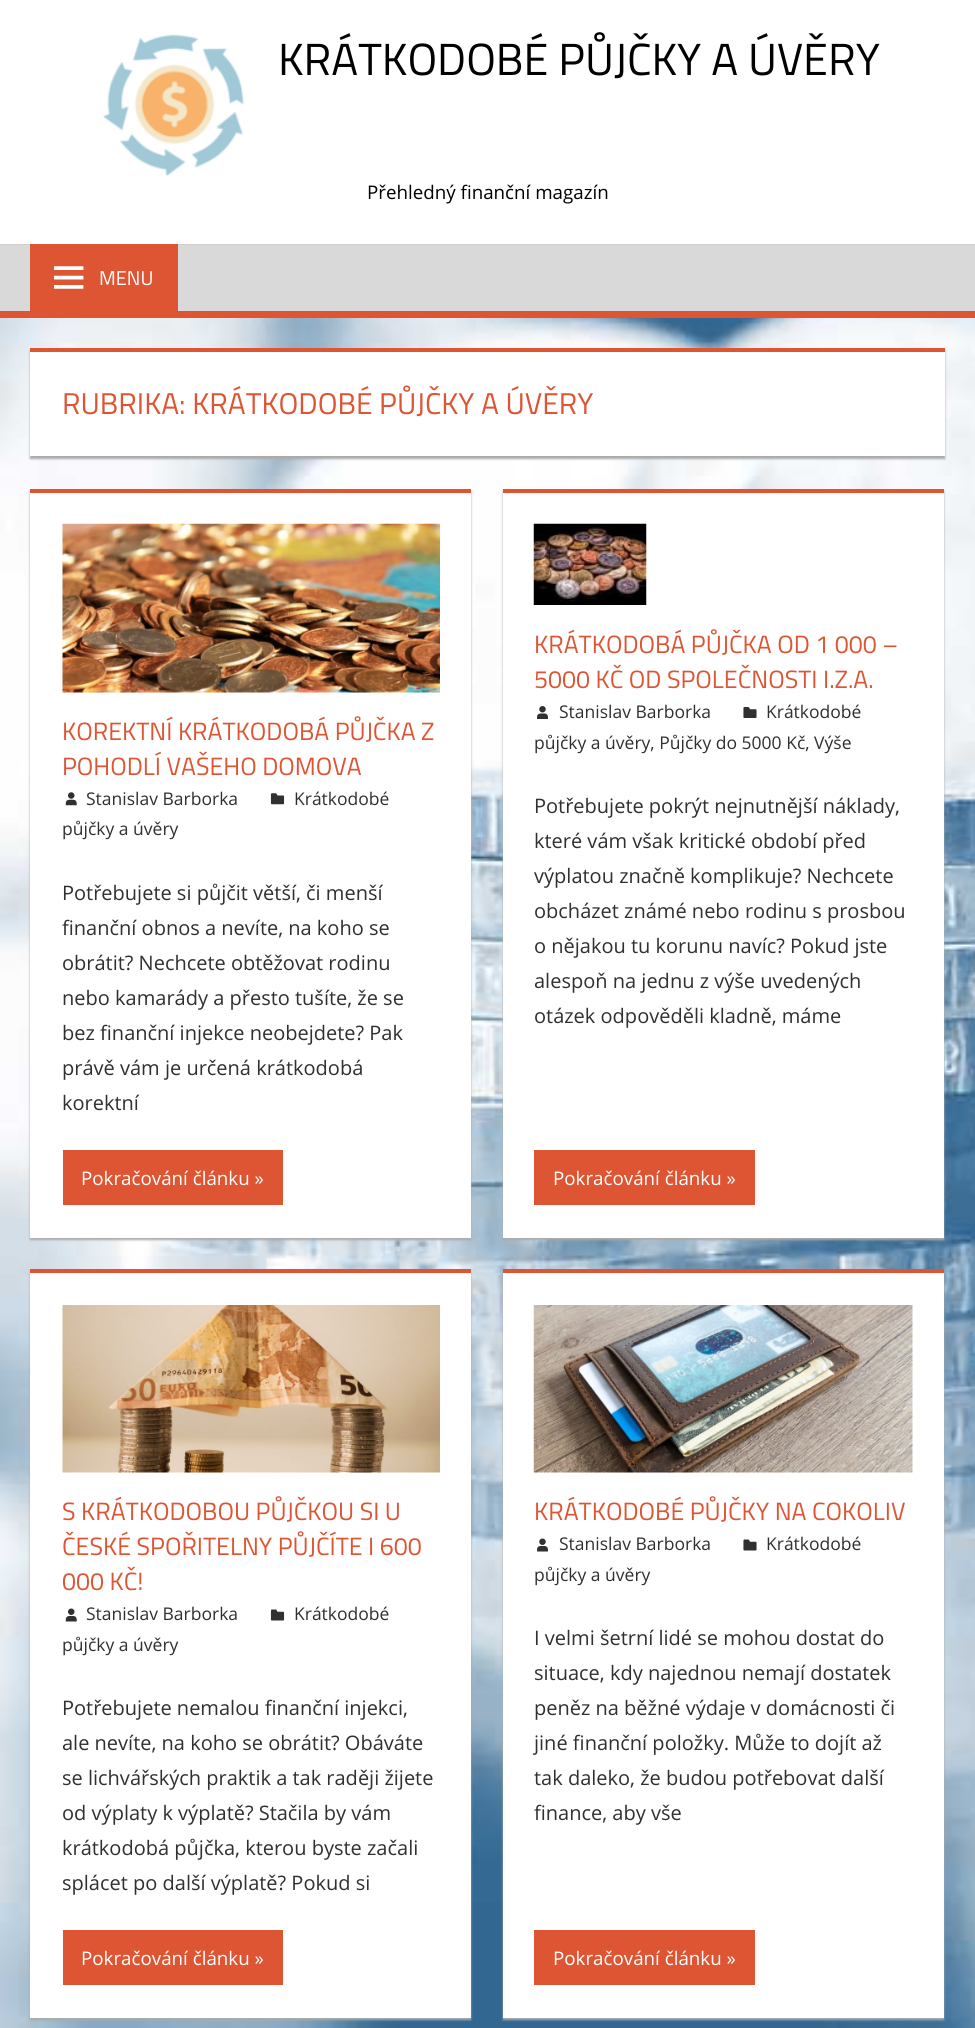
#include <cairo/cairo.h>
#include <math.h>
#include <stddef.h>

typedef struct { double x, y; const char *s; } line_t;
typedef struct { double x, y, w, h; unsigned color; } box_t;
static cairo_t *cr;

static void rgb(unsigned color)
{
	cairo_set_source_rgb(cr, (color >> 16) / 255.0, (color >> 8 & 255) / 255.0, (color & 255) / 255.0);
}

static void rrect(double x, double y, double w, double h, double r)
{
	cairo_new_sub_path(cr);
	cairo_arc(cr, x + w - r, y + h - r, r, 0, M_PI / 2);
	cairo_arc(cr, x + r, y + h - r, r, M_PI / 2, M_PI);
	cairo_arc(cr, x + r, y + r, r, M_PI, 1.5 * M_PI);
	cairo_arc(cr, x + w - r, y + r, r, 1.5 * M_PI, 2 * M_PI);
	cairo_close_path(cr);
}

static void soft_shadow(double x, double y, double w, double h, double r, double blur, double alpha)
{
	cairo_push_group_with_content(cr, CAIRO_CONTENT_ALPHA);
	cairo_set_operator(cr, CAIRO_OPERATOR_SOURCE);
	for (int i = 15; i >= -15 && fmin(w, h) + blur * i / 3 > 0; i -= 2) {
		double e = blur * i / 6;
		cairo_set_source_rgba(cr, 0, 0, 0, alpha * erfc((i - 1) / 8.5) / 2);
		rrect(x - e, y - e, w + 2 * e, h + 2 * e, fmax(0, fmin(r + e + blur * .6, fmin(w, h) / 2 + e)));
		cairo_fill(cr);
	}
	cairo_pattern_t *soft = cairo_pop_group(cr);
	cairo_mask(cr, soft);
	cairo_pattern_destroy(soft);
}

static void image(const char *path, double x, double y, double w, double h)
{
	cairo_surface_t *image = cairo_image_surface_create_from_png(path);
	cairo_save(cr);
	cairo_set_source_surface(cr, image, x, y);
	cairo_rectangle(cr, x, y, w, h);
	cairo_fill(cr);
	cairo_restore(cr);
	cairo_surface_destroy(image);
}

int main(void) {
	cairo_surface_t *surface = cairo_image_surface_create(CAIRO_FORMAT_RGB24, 975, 2028);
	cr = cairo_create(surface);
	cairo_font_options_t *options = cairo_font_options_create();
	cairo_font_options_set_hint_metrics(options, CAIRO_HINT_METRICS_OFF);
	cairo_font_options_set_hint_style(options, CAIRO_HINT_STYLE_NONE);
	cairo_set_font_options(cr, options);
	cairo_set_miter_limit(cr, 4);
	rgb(0xffffff);
	cairo_paint(cr);
	image("img/1.png", 0, 318, 975, 1710);
	image("img/2.png", 103, 34, 141, 143);
	{
		static const box_t items[] = {
			{0, 245, 975, 66, 0xd9d9d9},
			{0, 244, 975, 1, 0xcecece},
			{0, 311, 975, 7, 0xdd5533},
			{30, 244, 148, 67, 0xdd5533},
		};
		for (size_t i = 0; i < sizeof items / sizeof *items; i++) {
			rgb(items[i].color);
			cairo_rectangle(cr, items[i].x, items[i].y, items[i].w, items[i].h);
			cairo_fill(cr);
		}
	}
	image("img/3.png", 54, 266, 30, 23);
	rgb(0xaaaaaa);
	soft_shadow(30, 350, 915, 109, 0, 1, 1);
	rgb(0xffffff);
	cairo_rectangle(cr, 30, 352, 915, 104);
	cairo_fill(cr);
	rgb(0xdd5533);
	cairo_rectangle(cr, 30, 348, 915, 4);
	cairo_fill(cr);
	rgb(0xaaaaaa);
	soft_shadow(30, 491, 441, 749, 0, 1, 1);
	rgb(0xffffff);
	cairo_rectangle(cr, 30, 493, 441, 745);
	cairo_fill(cr);
	rgb(0xdd5533);
	cairo_rectangle(cr, 30, 489, 441, 4);
	cairo_fill(cr);
	image("img/4.png", 62, 523, 378, 170);
	image("img/5.png", 65, 792, 12, 14);
	image("img/6.png", 270, 793, 15, 12);
	cairo_rectangle(cr, 63, 1150, 220, 55);
	cairo_fill(cr);
	rgb(0xaaaaaa);
	soft_shadow(503, 491, 441, 749, 0, 1, 1);
	rgb(0xffffff);
	cairo_rectangle(cr, 503, 493, 441, 745);
	cairo_fill(cr);
	rgb(0xdd5533);
	cairo_rectangle(cr, 503, 489, 441, 4);
	cairo_fill(cr);
	image("img/7.png", 533, 523, 114, 82);
	image("img/8.png", 537, 706, 11, 13);
	image("img/9.png", 743, 707, 14, 11);
	cairo_rectangle(cr, 534, 1150, 221, 55);
	cairo_fill(cr);
	rgb(0xaaaaaa);
	soft_shadow(30, 1271, 441, 749, 0, 1, 1);
	rgb(0xffffff);
	cairo_rectangle(cr, 30, 1273, 441, 745);
	cairo_fill(cr);
	rgb(0xdd5533);
	cairo_rectangle(cr, 30, 1269, 441, 4);
	cairo_fill(cr);
	image("img/10.png", 62, 1305, 378, 168);
	image("img/11.png", 65, 1608, 12, 14);
	image("img/12.png", 270, 1609, 15, 12);
	cairo_rectangle(cr, 63, 1930, 220, 55);
	cairo_fill(cr);
	rgb(0xaaaaaa);
	soft_shadow(503, 1271, 441, 749, 0, 1, 1);
	rgb(0xffffff);
	cairo_rectangle(cr, 503, 1273, 441, 745);
	cairo_fill(cr);
	rgb(0xdd5533);
	cairo_rectangle(cr, 503, 1269, 441, 4);
	cairo_fill(cr);
	image("img/13.png", 533, 1305, 380, 168);
	image("img/14.png", 537, 1538, 11, 14);
	image("img/15.png", 743, 1539, 14, 12);
	cairo_rectangle(cr, 534, 1930, 221, 55);
	cairo_fill(cr);
	cairo_select_font_face(cr, "Titillium Web", CAIRO_FONT_SLANT_NORMAL, CAIRO_FONT_WEIGHT_NORMAL);
	cairo_set_font_size(cr, 45);
	rgb(0x000000);
	cairo_move_to(cr, 278, 75);
	cairo_show_text(cr, "KRÁTKODOBÉ PŮJČKY A ÚVĚRY");
	cairo_select_font_face(cr, "Open Sans", CAIRO_FONT_SLANT_NORMAL, CAIRO_FONT_WEIGHT_NORMAL);
	cairo_set_font_size(cr, 18.75);
	cairo_move_to(cr, 367, 199);
	cairo_show_text(cr, "Přehledný finanční magazín");
	cairo_select_font_face(cr, "Titillium Web", CAIRO_FONT_SLANT_NORMAL, CAIRO_FONT_WEIGHT_NORMAL);
	cairo_set_font_size(cr, 20);
	rgb(0xffffff);
	cairo_move_to(cr, 99, 285);
	cairo_show_text(cr, "MENU");
	cairo_set_font_size(cr, 30);
	rgb(0xdd5533);
	cairo_move_to(cr, 62, 414);
	cairo_show_text(cr, "RUBRIKA: KRÁTKODOBÉ PŮJČKY A ÚVĚRY");
	cairo_set_font_size(cr, 25);
	cairo_move_to(cr, 62, 740);
	cairo_show_text(cr, "KOREKTNÍ KRÁTKODOBÁ PŮJČKA Z");
	cairo_move_to(cr, 62, 775);
	cairo_show_text(cr, "POHODLÍ VAŠEHO DOMOVA");
	cairo_select_font_face(cr, "Open Sans", CAIRO_FONT_SLANT_NORMAL, CAIRO_FONT_WEIGHT_NORMAL);
	cairo_set_font_size(cr, 17.5);
	rgb(0x303030);
	{
		static const line_t items[] = {
			{86, 805, "Stanislav Barborka"},
			{294, 805, "Krátkodobé"},
			{62, 835, "půjčky a úvěry"},
		};
		for (size_t i = 0; i < sizeof items / sizeof *items; i++) {
			cairo_move_to(cr, items[i].x, items[i].y);
			cairo_show_text(cr, items[i].s);
		}
	}
	cairo_set_font_size(cr, 20);
	{
		static const line_t items[] = {
			{62, 900, "Potřebujete si půjčit větší, či menší"},
			{62, 935, "finanční obnos a nevíte, na koho se"},
			{62, 970, "obrátit? Nechcete obtěžovat rodinu"},
			{62, 1005, "nebo kamarády a přesto tušíte, že se"},
			{62, 1040, "bez finanční injekce neobejdete? Pak"},
			{62, 1075, "právě vám je určená krátkodobá"},
			{62, 1110, "korektní"},
		};
		for (size_t i = 0; i < sizeof items / sizeof *items; i++) {
			cairo_move_to(cr, items[i].x, items[i].y);
			cairo_show_text(cr, items[i].s);
		}
	}
	cairo_set_font_size(cr, 18.75);
	rgb(0xffffff);
	cairo_move_to(cr, 81, 1185);
	cairo_show_text(cr, "Pokračování článku »");
	cairo_select_font_face(cr, "Titillium Web", CAIRO_FONT_SLANT_NORMAL, CAIRO_FONT_WEIGHT_NORMAL);
	cairo_set_font_size(cr, 25);
	rgb(0xdd5533);
	cairo_move_to(cr, 534, 653);
	cairo_show_text(cr, "KRÁTKODOBÁ PŮJČKA OD 1 000 –");
	cairo_move_to(cr, 534, 688);
	cairo_show_text(cr, "5000 KČ OD SPOLEČNOSTI I.Z.A.");
	cairo_select_font_face(cr, "Open Sans", CAIRO_FONT_SLANT_NORMAL, CAIRO_FONT_WEIGHT_NORMAL);
	cairo_set_font_size(cr, 17.5);
	rgb(0x303030);
	{
		static const line_t items[] = {
			{559, 718, "Stanislav Barborka"},
			{766, 718, "Krátkodobé"},
			{534, 749, "půjčky a úvěry, Půjčky do 5000 Kč, Výše"},
		};
		for (size_t i = 0; i < sizeof items / sizeof *items; i++) {
			cairo_move_to(cr, items[i].x, items[i].y);
			cairo_show_text(cr, items[i].s);
		}
	}
	cairo_set_font_size(cr, 20);
	{
		static const line_t items[] = {
			{534, 813, "Potřebujete pokrýt nejnutnější náklady,"},
			{534, 848, "které vám však kritické období před"},
			{534, 883, "výplatou značně komplikuje? Nechcete"},
			{534, 918, "obcházet známé nebo rodinu s prosbou"},
			{534, 953, "o nějakou tu korunu navíc? Pokud jste"},
			{534, 988, "alespoň na jednu z výše uvedených"},
			{534, 1023, "otázek odpověděli kladně, máme"},
		};
		for (size_t i = 0; i < sizeof items / sizeof *items; i++) {
			cairo_move_to(cr, items[i].x, items[i].y);
			cairo_show_text(cr, items[i].s);
		}
	}
	cairo_set_font_size(cr, 18.75);
	rgb(0xffffff);
	cairo_move_to(cr, 553, 1185);
	cairo_show_text(cr, "Pokračování článku »");
	cairo_select_font_face(cr, "Titillium Web", CAIRO_FONT_SLANT_NORMAL, CAIRO_FONT_WEIGHT_NORMAL);
	cairo_set_font_size(cr, 25);
	rgb(0xdd5533);
	{
		static const line_t items[] = {
			{62, 1520, "S KRÁTKODOBOU PŮJČKOU SI U"},
			{62, 1555, "ČESKÉ SPOŘITELNY PŮJČÍTE I 600"},
			{62, 1590, "000 KČ!"},
		};
		for (size_t i = 0; i < sizeof items / sizeof *items; i++) {
			cairo_move_to(cr, items[i].x, items[i].y);
			cairo_show_text(cr, items[i].s);
		}
	}
	cairo_select_font_face(cr, "Open Sans", CAIRO_FONT_SLANT_NORMAL, CAIRO_FONT_WEIGHT_NORMAL);
	cairo_set_font_size(cr, 17.5);
	rgb(0x303030);
	{
		static const line_t items[] = {
			{86, 1620, "Stanislav Barborka"},
			{294, 1620, "Krátkodobé"},
			{62, 1651, "půjčky a úvěry"},
		};
		for (size_t i = 0; i < sizeof items / sizeof *items; i++) {
			cairo_move_to(cr, items[i].x, items[i].y);
			cairo_show_text(cr, items[i].s);
		}
	}
	cairo_set_font_size(cr, 20);
	{
		static const line_t items[] = {
			{62, 1715, "Potřebujete nemalou finanční injekci,"},
			{62, 1750, "ale nevíte, na koho se obrátit? Obáváte"},
			{62, 1785, "se lichvářských praktik a tak raději žijete"},
			{62, 1820, "od výplaty k výplatě? Stačila by vám"},
			{62, 1855, "krátkodobá půjčka, kterou byste začali"},
			{62, 1890, "splácet po další výplatě? Pokud si"},
		};
		for (size_t i = 0; i < sizeof items / sizeof *items; i++) {
			cairo_move_to(cr, items[i].x, items[i].y);
			cairo_show_text(cr, items[i].s);
		}
	}
	cairo_set_font_size(cr, 18.75);
	rgb(0xffffff);
	cairo_move_to(cr, 81, 1965);
	cairo_show_text(cr, "Pokračování článku »");
	cairo_select_font_face(cr, "Titillium Web", CAIRO_FONT_SLANT_NORMAL, CAIRO_FONT_WEIGHT_NORMAL);
	cairo_set_font_size(cr, 25);
	rgb(0xdd5533);
	cairo_move_to(cr, 534, 1520);
	cairo_show_text(cr, "KRÁTKODOBÉ PŮJČKY NA COKOLIV");
	cairo_select_font_face(cr, "Open Sans", CAIRO_FONT_SLANT_NORMAL, CAIRO_FONT_WEIGHT_NORMAL);
	cairo_set_font_size(cr, 17.5);
	rgb(0x303030);
	{
		static const line_t items[] = {
			{559, 1550, "Stanislav Barborka"},
			{766, 1550, "Krátkodobé"},
			{534, 1581, "půjčky a úvěry"},
		};
		for (size_t i = 0; i < sizeof items / sizeof *items; i++) {
			cairo_move_to(cr, items[i].x, items[i].y);
			cairo_show_text(cr, items[i].s);
		}
	}
	cairo_set_font_size(cr, 20);
	{
		static const line_t items[] = {
			{534, 1645, "I velmi šetrní lidé se mohou dostat do"},
			{534, 1680, "situace, kdy najednou nemají dostatek"},
			{534, 1715, "peněz na běžné výdaje v domácnosti či"},
			{534, 1750, "jiné finanční položky. Může to dojít až"},
			{534, 1785, "tak daleko, že budou potřebovat další"},
			{534, 1820, "finance, aby vše"},
		};
		for (size_t i = 0; i < sizeof items / sizeof *items; i++) {
			cairo_move_to(cr, items[i].x, items[i].y);
			cairo_show_text(cr, items[i].s);
		}
	}
	cairo_set_font_size(cr, 18.75);
	rgb(0xffffff);
	cairo_move_to(cr, 553, 1965);
	cairo_show_text(cr, "Pokračování článku »");
	cairo_surface_write_to_png(surface, "page.png");
	cairo_font_options_destroy(options);
	cairo_destroy(cr);
	cairo_surface_destroy(surface);
	return 0;
}
